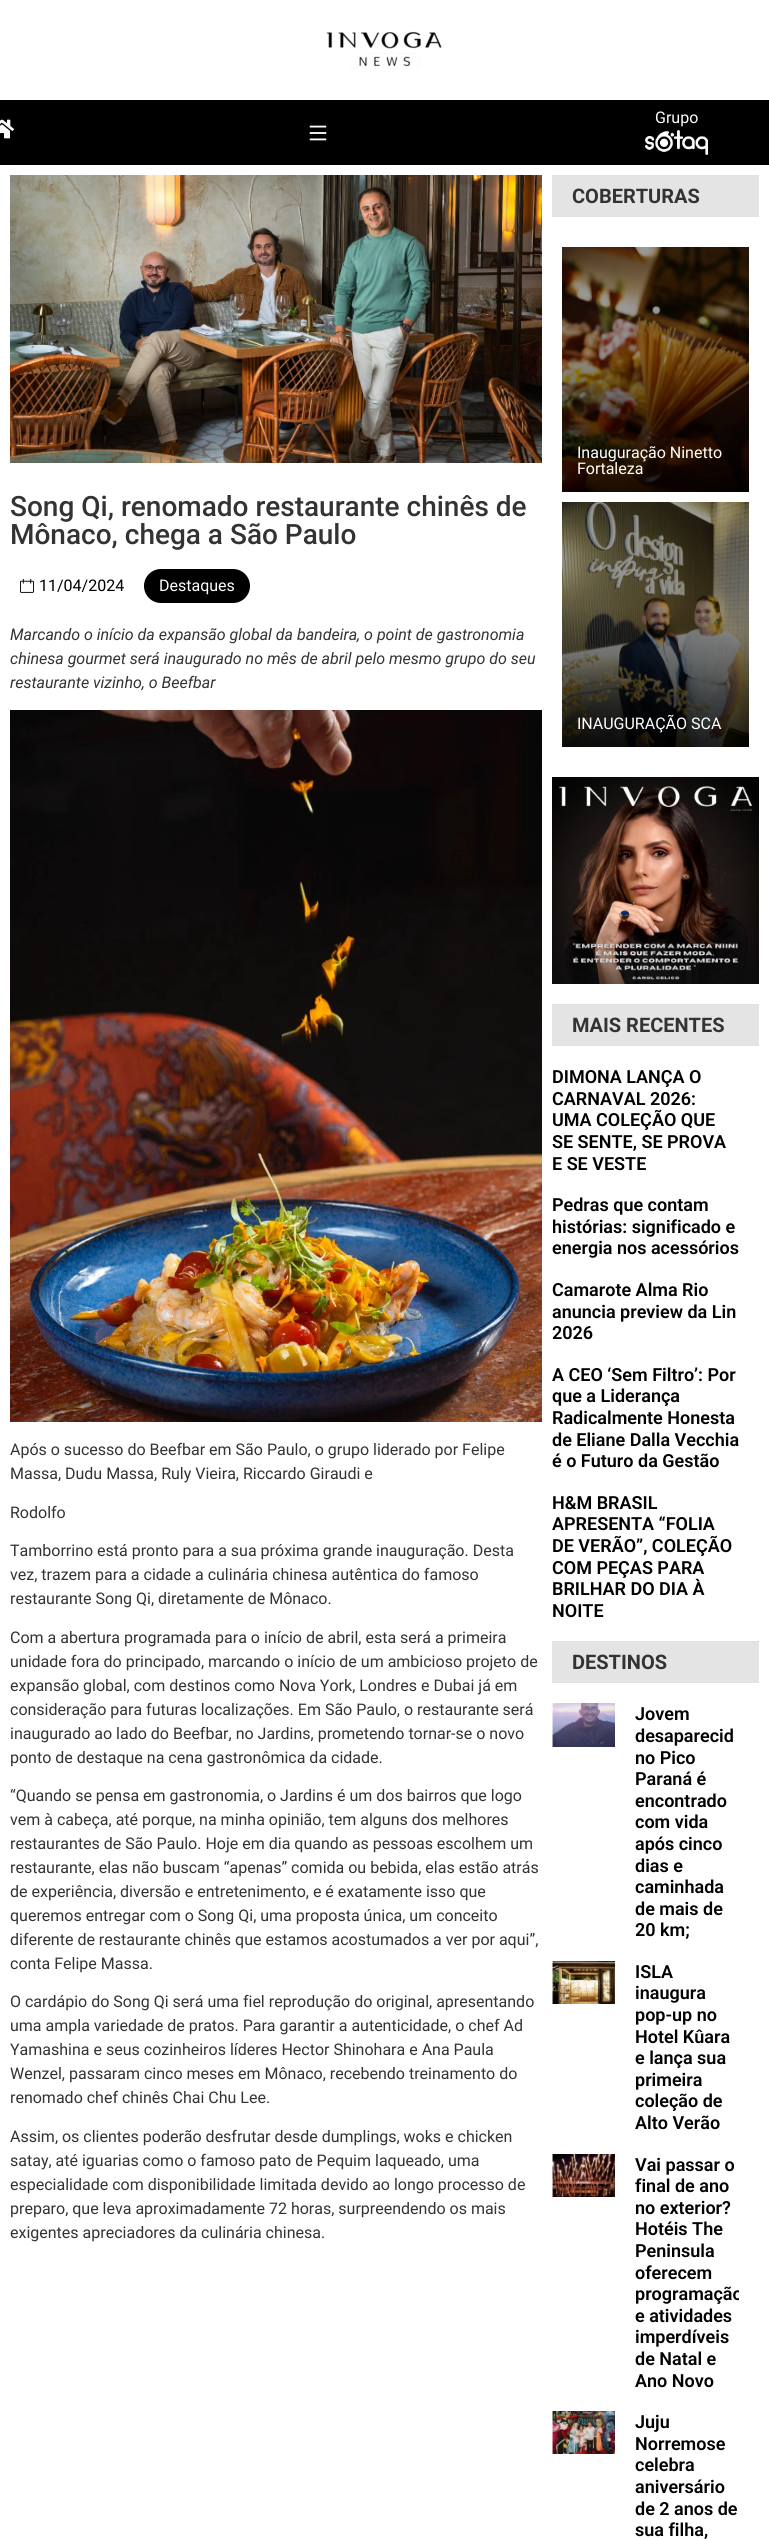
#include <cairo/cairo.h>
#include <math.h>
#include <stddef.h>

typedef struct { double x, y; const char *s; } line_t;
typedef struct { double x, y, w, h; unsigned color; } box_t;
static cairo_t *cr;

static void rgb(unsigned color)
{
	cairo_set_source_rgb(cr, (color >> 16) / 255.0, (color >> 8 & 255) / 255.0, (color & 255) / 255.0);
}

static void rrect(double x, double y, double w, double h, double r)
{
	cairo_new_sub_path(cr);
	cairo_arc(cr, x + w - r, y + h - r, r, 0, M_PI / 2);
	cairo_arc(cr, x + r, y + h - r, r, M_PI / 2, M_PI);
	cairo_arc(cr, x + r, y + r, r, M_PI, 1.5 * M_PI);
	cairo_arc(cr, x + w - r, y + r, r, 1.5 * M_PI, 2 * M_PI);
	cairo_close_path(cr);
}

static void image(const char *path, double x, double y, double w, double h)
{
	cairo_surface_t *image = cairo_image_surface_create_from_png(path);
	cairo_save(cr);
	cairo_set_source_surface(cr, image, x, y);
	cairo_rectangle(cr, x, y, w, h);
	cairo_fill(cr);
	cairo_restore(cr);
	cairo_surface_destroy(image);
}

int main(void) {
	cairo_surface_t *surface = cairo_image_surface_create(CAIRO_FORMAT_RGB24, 769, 2539);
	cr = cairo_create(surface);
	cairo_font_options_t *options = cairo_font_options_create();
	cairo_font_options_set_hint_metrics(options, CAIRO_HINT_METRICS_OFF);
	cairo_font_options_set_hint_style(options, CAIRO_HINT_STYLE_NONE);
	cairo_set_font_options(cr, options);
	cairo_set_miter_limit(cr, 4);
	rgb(0xffffff);
	cairo_paint(cr);
	image("img/1.png", 326, 31, 116, 38);
	rgb(0x000000);
	cairo_rectangle(cr, 0, 100, 769, 65);
	cairo_fill(cr);
	image("img/2.png", 0, 119, 14, 20);
	image("img/3.png", 309, 125, 18, 16);
	image("img/4.png", 645, 130, 63, 25);
	image("img/5.png", 10, 175, 532, 288);
	image("img/6.png", 20, 578, 14, 15);
	rrect(144, 569, 106, 34, 17);
	cairo_fill(cr);
	image("img/7.png", 10, 710, 532, 712);
	{
		static const box_t items[] = {
			{552, 176, 207, 40, 0xe4e4e4},
			{552, 175, 207, 1, 0xe1e1e1},
			{552, 216, 207, 1, 0xe1e1e1},
		};
		for (size_t i = 0; i < sizeof items / sizeof *items; i++) {
			rgb(items[i].color);
			cairo_rectangle(cr, items[i].x, items[i].y, items[i].w, items[i].h);
			cairo_fill(cr);
		}
	}
	image("img/8.png", 562, 247, 187, 245);
	image("img/9.png", 562, 502, 187, 245);
	image("img/10.png", 552, 777, 207, 207);
	{
		static const box_t items[] = {
			{552, 1005, 207, 40, 0xe4e4e4},
			{552, 1004, 207, 1, 0xe1e1e1},
			{552, 1045, 207, 1, 0xe1e1e1},
			{552, 1642, 207, 40, 0xe4e4e4},
			{552, 1641, 207, 1, 0xe1e1e1},
			{552, 1682, 207, 1, 0xe1e1e1},
		};
		for (size_t i = 0; i < sizeof items / sizeof *items; i++) {
			rgb(items[i].color);
			cairo_rectangle(cr, items[i].x, items[i].y, items[i].w, items[i].h);
			cairo_fill(cr);
		}
	}
	image("img/11.png", 552, 1703, 63, 44);
	image("img/12.png", 552, 1961, 63, 43);
	image("img/13.png", 552, 2154, 63, 43);
	image("img/14.png", 552, 2411, 63, 43);
	cairo_select_font_face(cr, "Roboto", CAIRO_FONT_SLANT_NORMAL, CAIRO_FONT_WEIGHT_NORMAL);
	cairo_set_font_size(cr, 16);
	rgb(0xffffff);
	cairo_move_to(cr, 655, 123);
	cairo_show_text(cr, "Grupo");
	cairo_select_font_face(cr, "Roboto Medium", CAIRO_FONT_SLANT_NORMAL, CAIRO_FONT_WEIGHT_NORMAL);
	cairo_set_font_size(cr, 28);
	rgb(0x333333);
	cairo_move_to(cr, 10, 516);
	cairo_show_text(cr, "Song Qi, renomado restaurante chinês de");
	cairo_move_to(cr, 10, 544);
	cairo_show_text(cr, "Mônaco, chega a São Paulo");
	cairo_select_font_face(cr, "Roboto", CAIRO_FONT_SLANT_NORMAL, CAIRO_FONT_WEIGHT_NORMAL);
	cairo_set_font_size(cr, 16);
	rgb(0x000000);
	cairo_move_to(cr, 39, 591);
	cairo_show_text(cr, "11/04/2024");
	rgb(0xffffff);
	cairo_move_to(cr, 159, 591);
	cairo_show_text(cr, "Destaques");
	cairo_select_font_face(cr, "Roboto", CAIRO_FONT_SLANT_ITALIC, CAIRO_FONT_WEIGHT_NORMAL);
	rgb(0x333333);
	{
		static const line_t items[] = {
			{10, 640, "Marcando o início da expansão global da bandeira, o point de gastronomia"},
			{10, 664, "chinesa gourmet será inaugurado no mês de abril pelo mesmo grupo do seu"},
			{10, 688, "restaurante vizinho, o Beefbar"},
		};
		for (size_t i = 0; i < sizeof items / sizeof *items; i++) {
			cairo_move_to(cr, items[i].x, items[i].y);
			cairo_show_text(cr, items[i].s);
		}
	}
	cairo_select_font_face(cr, "Roboto", CAIRO_FONT_SLANT_NORMAL, CAIRO_FONT_WEIGHT_NORMAL);
	{
		static const line_t items[] = {
			{10, 1455, "Após o sucesso do Beefbar em São Paulo, o grupo liderado por Felipe"},
			{10, 1479, "Massa, Dudu Massa, Ruly Vieira, Riccardo Giraudi e"},
			{10, 1518, "Rodolfo"},
			{10, 1556, "Tamborrino está pronto para a sua próxima grande inauguração. Desta"},
			{10, 1580, "vez, trazem para a cidade a culinária chinesa autêntica do famoso"},
			{10, 1604, "restaurante Song Qi, diretamente de Mônaco."},
			{10, 1643, "Com a abertura programada para o início de abril, esta será a primeira"},
			{10, 1667, "unidade fora do principado, marcando o início de um ambicioso projeto de"},
			{10, 1691, "expansão global, com destinos como Nova York, Londres e Dubai já em"},
			{10, 1715, "consideração para futuras localizações. Em São Paulo, o restaurante será"},
			{10, 1739, "inaugurado ao lado do Beefbar, no Jardins, prometendo tornar-se o novo"},
			{10, 1763, "ponto de destaque na cena gastronômica da cidade."},
			{10, 1801, "“Quando se pensa em gastronomia, o Jardins é um dos bairros que logo"},
			{10, 1825, "vem à cabeça, até porque, na minha opinião, tem alguns dos melhores"},
			{10, 1849, "restaurantes de São Paulo. Hoje em dia quando as pessoas escolhem um"},
			{10, 1873, "restaurante, elas não buscam “apenas” comida ou bebida, elas estão atrás"},
			{10, 1897, "de experiência, diversão e entretenimento, e é exatamente isso que"},
			{10, 1921, "queremos entregar com o Song Qi, uma proposta única, um conceito"},
			{10, 1945, "diferente de restaurante chinês que estamos acostumados a ver por aqui”,"},
			{10, 1969, "conta Felipe Massa."},
			{10, 2007, "O cardápio do Song Qi será uma fiel reprodução do original, apresentando"},
			{10, 2031, "uma ampla variedade de pratos. Para garantir a autenticidade, o chef Ad"},
			{10, 2055, "Yamashina e seus cozinheiros líderes Hector Shinohara e Ana Paula"},
			{10, 2079, "Wenzel, passaram cinco meses em Mônaco, recebendo treinamento do"},
			{10, 2103, "renomado chef chinês Chai Chu Lee."},
			{10, 2142, "Assim, os clientes poderão desfrutar desde dumplings, woks e chicken"},
			{10, 2166, "satay, até iguarias como o famoso pato de Pequim laqueado, uma"},
			{10, 2190, "especialidade com disponibilidade limitada devido ao longo processo de"},
			{10, 2214, "preparo, que leva aproximadamente 72 horas, surpreendendo os mais"},
			{10, 2238, "exigentes apreciadores da culinária chinesa."},
		};
		for (size_t i = 0; i < sizeof items / sizeof *items; i++) {
			cairo_move_to(cr, items[i].x, items[i].y);
			cairo_show_text(cr, items[i].s);
		}
	}
	cairo_select_font_face(cr, "Roboto", CAIRO_FONT_SLANT_NORMAL, CAIRO_FONT_WEIGHT_BOLD);
	cairo_set_font_size(cr, 20);
	cairo_move_to(cr, 572, 203);
	cairo_show_text(cr, "COBERTURAS");
	cairo_select_font_face(cr, "Roboto", CAIRO_FONT_SLANT_NORMAL, CAIRO_FONT_WEIGHT_NORMAL);
	cairo_set_font_size(cr, 16);
	rgb(0xffffff);
	{
		static const line_t items[] = {
			{577, 458, "Inauguração Ninetto"},
			{577, 474, "Fortaleza"},
			{577, 729, "INAUGURAÇÃO SCA"},
		};
		for (size_t i = 0; i < sizeof items / sizeof *items; i++) {
			cairo_move_to(cr, items[i].x, items[i].y);
			cairo_show_text(cr, items[i].s);
		}
	}
	cairo_select_font_face(cr, "Roboto", CAIRO_FONT_SLANT_NORMAL, CAIRO_FONT_WEIGHT_BOLD);
	cairo_set_font_size(cr, 20);
	rgb(0x333333);
	cairo_move_to(cr, 572, 1032);
	cairo_show_text(cr, "MAIS RECENTES");
	cairo_select_font_face(cr, "Roboto SemiBold", CAIRO_FONT_SLANT_NORMAL, CAIRO_FONT_WEIGHT_NORMAL);
	cairo_set_font_size(cr, 18);
	rgb(0x000000);
	{
		static const line_t items[] = {
			{552, 1083, "DIMONA LANÇA O"},
			{552, 1105, "CARNAVAL 2026:"},
			{552, 1126, "UMA COLEÇÃO QUE"},
			{552, 1148, "SE SENTE, SE PROVA"},
			{552, 1170, "E SE VESTE"},
			{552, 1211, "Pedras que contam"},
			{552, 1233, "histórias: significado e"},
			{552, 1254, "energia nos acessórios"},
			{552, 1296, "Camarote Alma Rio"},
			{552, 1318, "anuncia preview da Lin"},
			{552, 1339, "2026"},
			{552, 1381, "A CEO ‘Sem Filtro’: Por"},
			{552, 1402, "que a Liderança"},
			{552, 1424, "Radicalmente Honesta"},
			{552, 1446, "de Eliane Dalla Vecchia"},
			{552, 1467, "é o Futuro da Gestão"},
			{552, 1509, "H&M BRASIL"},
			{552, 1530, "APRESENTA “FOLIA"},
			{552, 1552, "DE VERÃO”, COLEÇÃO"},
			{552, 1574, "COM PEÇAS PARA"},
			{552, 1595, "BRILHAR DO DIA À"},
			{552, 1617, "NOITE"},
		};
		for (size_t i = 0; i < sizeof items / sizeof *items; i++) {
			cairo_move_to(cr, items[i].x, items[i].y);
			cairo_show_text(cr, items[i].s);
		}
	}
	cairo_select_font_face(cr, "Roboto", CAIRO_FONT_SLANT_NORMAL, CAIRO_FONT_WEIGHT_BOLD);
	cairo_set_font_size(cr, 20);
	rgb(0x333333);
	cairo_move_to(cr, 572, 1669);
	cairo_show_text(cr, "DESTINOS");
	cairo_select_font_face(cr, "Roboto SemiBold", CAIRO_FONT_SLANT_NORMAL, CAIRO_FONT_WEIGHT_NORMAL);
	cairo_set_font_size(cr, 18);
	rgb(0x000000);
	{
		static const line_t items[] = {
			{635, 1720, "Jovem"},
			{635, 1742, "desaparecid"},
			{635, 1764, "no Pico"},
			{635, 1785, "Paraná é"},
			{635, 1807, "encontrado"},
			{635, 1828, "com vida"},
			{635, 1850, "após cinco"},
			{635, 1872, "dias e"},
			{635, 1893, "caminhada"},
			{635, 1915, "de mais de"},
			{635, 1936, "20 km;"},
			{635, 1978, "ISLA"},
			{635, 1999, "inaugura"},
			{635, 2021, "pop-up no"},
			{635, 2043, "Hotel Kûara"},
			{635, 2064, "e lança sua"},
			{635, 2086, "primeira"},
			{635, 2107, "coleção de"},
			{635, 2129, "Alto Verão"},
			{635, 2171, "Vai passar o"},
			{635, 2192, "final de ano"},
			{635, 2214, "no exterior?"},
			{635, 2235, "Hotéis The"},
			{635, 2257, "Peninsula"},
			{635, 2279, "oferecem"},
		};
		for (size_t i = 0; i < sizeof items / sizeof *items; i++) {
			cairo_move_to(cr, items[i].x, items[i].y);
			cairo_show_text(cr, items[i].s);
		}
	}
	cairo_save(cr);
	cairo_rectangle(cr, 552, 2154, 187, 237);
	cairo_clip(cr);
	cairo_move_to(cr, 635, 2300);
	cairo_show_text(cr, "programação");
	cairo_restore(cr);
	{
		static const line_t items[] = {
			{635, 2322, "e atividades"},
			{635, 2343, "imperdíveis"},
			{635, 2365, "de Natal e"},
			{635, 2387, "Ano Novo"},
			{635, 2428, "Juju"},
			{635, 2450, "Norremose"},
			{635, 2471, "celebra"},
			{635, 2493, "aniversário"},
			{635, 2515, "de 2 anos de"},
			{635, 2536, "sua filha,"},
		};
		for (size_t i = 0; i < sizeof items / sizeof *items; i++) {
			cairo_move_to(cr, items[i].x, items[i].y);
			cairo_show_text(cr, items[i].s);
		}
	}
	cairo_surface_write_to_png(surface, "page.png");
	cairo_font_options_destroy(options);
	cairo_destroy(cr);
	cairo_surface_destroy(surface);
	return 0;
}
